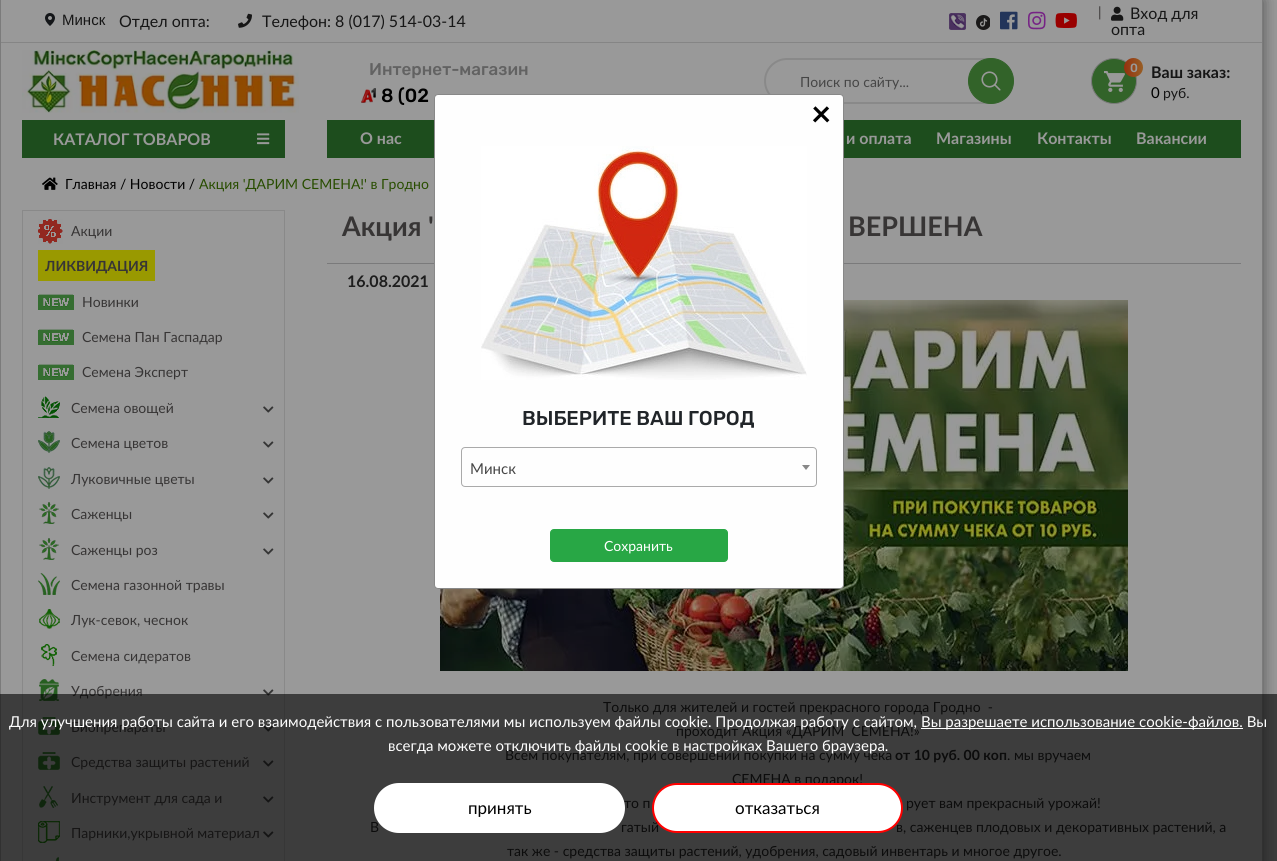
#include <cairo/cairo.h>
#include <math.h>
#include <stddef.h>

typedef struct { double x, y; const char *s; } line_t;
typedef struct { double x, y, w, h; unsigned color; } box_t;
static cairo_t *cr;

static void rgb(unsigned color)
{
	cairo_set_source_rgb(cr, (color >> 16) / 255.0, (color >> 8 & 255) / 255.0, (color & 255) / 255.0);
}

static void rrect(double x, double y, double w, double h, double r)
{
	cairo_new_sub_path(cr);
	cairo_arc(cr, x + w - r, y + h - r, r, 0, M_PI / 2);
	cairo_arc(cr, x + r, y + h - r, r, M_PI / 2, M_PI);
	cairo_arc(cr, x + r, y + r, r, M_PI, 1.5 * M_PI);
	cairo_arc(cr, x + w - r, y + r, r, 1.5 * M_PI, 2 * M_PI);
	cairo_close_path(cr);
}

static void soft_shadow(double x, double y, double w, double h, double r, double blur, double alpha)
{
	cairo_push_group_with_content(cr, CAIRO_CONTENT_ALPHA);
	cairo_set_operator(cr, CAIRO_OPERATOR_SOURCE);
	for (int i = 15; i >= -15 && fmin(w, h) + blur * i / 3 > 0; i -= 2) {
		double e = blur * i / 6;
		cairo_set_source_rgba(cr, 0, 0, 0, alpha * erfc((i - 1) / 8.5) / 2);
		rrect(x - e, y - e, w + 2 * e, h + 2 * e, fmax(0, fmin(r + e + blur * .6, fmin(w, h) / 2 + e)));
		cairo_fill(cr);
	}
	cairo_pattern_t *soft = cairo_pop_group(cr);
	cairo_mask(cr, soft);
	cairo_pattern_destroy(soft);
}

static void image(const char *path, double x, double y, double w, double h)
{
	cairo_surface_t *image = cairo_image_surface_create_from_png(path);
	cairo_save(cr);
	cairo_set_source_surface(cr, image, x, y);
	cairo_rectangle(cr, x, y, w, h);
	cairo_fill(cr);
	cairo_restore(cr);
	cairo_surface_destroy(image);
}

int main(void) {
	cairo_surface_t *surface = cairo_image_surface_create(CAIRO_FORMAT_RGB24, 1277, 861);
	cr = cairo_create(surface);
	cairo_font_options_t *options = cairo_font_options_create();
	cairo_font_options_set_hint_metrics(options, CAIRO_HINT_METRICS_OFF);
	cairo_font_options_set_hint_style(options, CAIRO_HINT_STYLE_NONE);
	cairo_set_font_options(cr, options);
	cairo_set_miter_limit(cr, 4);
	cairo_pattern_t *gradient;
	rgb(0x999999);
	cairo_paint(cr);
	cairo_save(cr);
	cairo_rectangle(cr, 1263, 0, 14, 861);
	cairo_clip(cr);
	rgb(0x525252);
	soft_shadow(0, 0, 1263, 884, 0, 7.5, 1);
	cairo_restore(cr);
	{
		static const box_t items[] = {
			{1262, 0, 1, 861, 0x7b7b7b},
			{0, 0, 1, 861, 0x7b7b7b},
			{1, 42, 1261, 1, 0x858585},
		};
		for (size_t i = 0; i < sizeof items / sizeof *items; i++) {
			rgb(items[i].color);
			cairo_rectangle(cr, items[i].x, items[i].y, items[i].w, items[i].h);
			cairo_fill(cr);
		}
	}
	image("img/1.png", 45, 13, 10, 13);
	image("img/2.png", 238, 13, 14, 15);
	image("img/3.png", 949, 13, 17, 17);
	image("img/4.png", 976, 15, 14, 15);
	image("img/5.png", 1000, 11, 18, 19);
	image("img/6.png", 1028, 11, 18, 19);
	image("img/7.png", 1055, 13, 22, 15);
	image("img/8.png", 1111, 6, 13, 15);
	image("img/9.png", 22, 50, 277, 63);
	image("img/10.png", 361, 88, 15, 15);
	rrect(765, 59, 248, 44, 22);
	rgb(0x898989);
	cairo_stroke(cr);
	rgb(0x326329);
	cairo_arc(cr, 991, 81, 22.5, 0, 2 * M_PI);
	cairo_fill_preserve(cr);
	cairo_set_line_width(cr, 1);
	cairo_stroke(cr);
	image("img/11.png", 981, 71, 20, 20);
	cairo_arc(cr, 1114, 81, 22.5, 0, 2 * M_PI);
	cairo_fill_preserve(cr);
	rgb(0x7b7b7b);
	cairo_stroke(cr);
	image("img/12.png", 1104, 71, 21, 21);
	gradient = cairo_pattern_create_linear(1124, 68, 1143, 68);
	cairo_pattern_add_color_stop_rgba(gradient, 0, 0.584, 0.192, 0.055, 1);
	cairo_pattern_add_color_stop_rgba(gradient, 1, 0.592, 0.369, 0.145, 1);
	cairo_set_source(cr, gradient);
	cairo_pattern_destroy(gradient);
	cairo_arc(cr, 1133.5, 67.5, 9.5, 0, 2 * M_PI);
	cairo_fill(cr);
	rgb(0x1d4d1d);
	cairo_rectangle(cr, 22, 120, 263, 38);
	cairo_fill(cr);
	image("img/13.png", 257, 133, 13, 12);
	cairo_rectangle(cr, 327, 120, 914, 38);
	cairo_fill(cr);
	image("img/14.png", 42, 177, 16, 13);
	cairo_rectangle(cr, 22.5, 210.5, 262, 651);
	rgb(0x898989);
	cairo_stroke(cr);
	image("img/15.png", 38, 219, 25, 25);
	rgb(0x999900);
	cairo_rectangle(cr, 38, 250, 117, 31);
	cairo_fill(cr);
	image("img/16.png", 38, 294, 36, 16);
	image("img/16.png", 38, 329, 36, 16);
	image("img/16.png", 38, 364, 36, 16);
	image("img/17.png", 38, 396, 22, 22);
	image("img/18.png", 263, 406, 11, 7);
	image("img/19.png", 38, 431, 22, 22);
	image("img/18.png", 263, 441, 11, 7);
	image("img/20.png", 38, 467, 22, 22);
	image("img/18.png", 263, 477, 11, 7);
	image("img/21.png", 39, 502, 20, 22);
	image("img/18.png", 263, 512, 11, 7);
	image("img/21.png", 39, 538, 20, 22);
	image("img/18.png", 263, 548, 11, 7);
	image("img/22.png", 38, 573, 22, 22);
	image("img/23.png", 39, 609, 21, 20);
	image("img/24.png", 41, 644, 16, 22);
	image("img/25.png", 39, 679, 20, 22);
	image("img/18.png", 263, 689, 11, 7);
	image("img/26.png", 38, 717, 22, 18);
	image("img/18.png", 263, 725, 11, 7);
	image("img/26.png", 38, 752, 22, 18);
	image("img/18.png", 263, 760, 11, 7);
	image("img/27.png", 39, 786, 19, 22);
	image("img/18.png", 263, 796, 11, 7);
	image("img/28.png", 38, 821, 22, 22);
	image("img/18.png", 263, 831, 11, 7);
	image("img/29.png", 55, 857, 4, 4);
	rgb(0x7a7a7b);
	cairo_rectangle(cr, 327, 263, 914, 1);
	cairo_fill(cr);
	image("img/30.png", 440, 300, 688, 371);
	rgb(0xfefefe);
	rrect(434.5, 94.5, 409, 494, 3.5);
	cairo_fill_preserve(cr);
	rgb(0x888888);
	cairo_stroke(cr);
	image("img/31.png", 481, 146, 326, 234);
	rrect(461.5, 447.5, 355, 39, 3.5);
	rgb(0xaaaaaa);
	cairo_stroke(cr);
	rgb(0x888888);
	cairo_new_path(cr);
	cairo_move_to(cr, 802, 465);
	cairo_line_to(cr, 810, 465);
	cairo_line_to(cr, 806, 470);
	cairo_close_path(cr);
	cairo_fill(cr);
	rgb(0x28a745);
	rrect(550.5, 529.5, 177, 32, 3.5);
	cairo_fill_preserve(cr);
	cairo_stroke(cr);
	cairo_select_font_face(cr, "Liberation Sans", CAIRO_FONT_SLANT_NORMAL, CAIRO_FONT_WEIGHT_NORMAL);
	cairo_set_font_size(cr, 15);
	rgb(0x161616);
	cairo_move_to(cr, 62, 25);
	cairo_show_text(cr, "Минск");
	cairo_select_font_face(cr, "Lato", CAIRO_FONT_SLANT_NORMAL, CAIRO_FONT_WEIGHT_NORMAL);
	cairo_set_font_size(cr, 16);
	{
		static const line_t items[] = {
			{119, 27, "Отдел опта:"},
			{262, 27, "Телефон:"},
			{335, 27, "8 (017) 514-03-14"},
		};
		for (size_t i = 0; i < sizeof items / sizeof *items; i++) {
			cairo_move_to(cr, items[i].x, items[i].y);
			cairo_show_text(cr, items[i].s);
		}
	}
	cairo_set_font_size(cr, 14);
	rgb(0x373535);
	cairo_move_to(cr, 1098, 17);
	cairo_show_text(cr, "|");
	cairo_set_font_size(cr, 16);
	rgb(0x161616);
	cairo_move_to(cr, 1130, 19);
	cairo_show_text(cr, "Вход для");
	cairo_move_to(cr, 1111, 35);
	cairo_show_text(cr, "опта");
	cairo_select_font_face(cr, "Rubik Medium", CAIRO_FONT_SLANT_NORMAL, CAIRO_FONT_WEIGHT_NORMAL);
	cairo_set_font_size(cr, 17);
	rgb(0x626262);
	cairo_move_to(cr, 369, 75);
	cairo_show_text(cr, "Интернет-магазин");
	cairo_set_font_size(cr, 19);
	rgb(0x000000);
	cairo_move_to(cr, 381, 102);
	cairo_show_text(cr, "8 (02");
	cairo_select_font_face(cr, "Lato", CAIRO_FONT_SLANT_NORMAL, CAIRO_FONT_WEIGHT_NORMAL);
	cairo_set_font_size(cr, 14);
	rgb(0x464646);
	cairo_move_to(cr, 800, 87);
	cairo_show_text(cr, "Поиск по сайту...");
	cairo_select_font_face(cr, "Rubik Medium", CAIRO_FONT_SLANT_NORMAL, CAIRO_FONT_WEIGHT_NORMAL);
	cairo_set_font_size(cr, 12);
	rgb(0x999999);
	cairo_move_to(cr, 1130, 72);
	cairo_show_text(cr, "0");
	cairo_select_font_face(cr, "Lato", CAIRO_FONT_SLANT_NORMAL, CAIRO_FONT_WEIGHT_BOLD);
	cairo_set_font_size(cr, 16);
	rgb(0x161616);
	cairo_move_to(cr, 1151, 78);
	cairo_show_text(cr, "Ваш заказ:");
	cairo_select_font_face(cr, "Lato", CAIRO_FONT_SLANT_NORMAL, CAIRO_FONT_WEIGHT_NORMAL);
	cairo_set_font_size(cr, 15);
	rgb(0x000000);
	cairo_move_to(cr, 1151, 98);
	cairo_show_text(cr, "0");
	cairo_set_font_size(cr, 14);
	rgb(0x161616);
	cairo_move_to(cr, 1163, 98);
	cairo_show_text(cr, "руб.");
	cairo_select_font_face(cr, "Lato", CAIRO_FONT_SLANT_NORMAL, CAIRO_FONT_WEIGHT_BOLD);
	cairo_set_font_size(cr, 16);
	rgb(0x999999);
	{
		static const line_t items[] = {
			{53, 145, "КАТАЛОГ ТОВАРОВ"},
			{360, 144, "О нас"},
			{846, 144, "и оплата"},
			{936, 144, "Магазины"},
			{1037, 144, "Контакты"},
			{1136, 144, "Вакансии"},
		};
		for (size_t i = 0; i < sizeof items / sizeof *items; i++) {
			cairo_move_to(cr, items[i].x, items[i].y);
			cairo_show_text(cr, items[i].s);
		}
	}
	cairo_select_font_face(cr, "Lato", CAIRO_FONT_SLANT_NORMAL, CAIRO_FONT_WEIGHT_NORMAL);
	cairo_set_font_size(cr, 14);
	rgb(0x000000);
	cairo_move_to(cr, 65, 189);
	cairo_show_text(cr, "Главная / Новости /");
	rgb(0x284d00);
	cairo_move_to(cr, 199, 189);
	cairo_show_text(cr, "Акция 'ДАРИМ СЕМЕНА!' в Гродно");
	rgb(0x373535);
	cairo_move_to(cr, 71, 236);
	cairo_show_text(cr, "Акции");
	cairo_select_font_face(cr, "Lato", CAIRO_FONT_SLANT_NORMAL, CAIRO_FONT_WEIGHT_BOLD);
	cairo_move_to(cr, 45, 271);
	cairo_show_text(cr, "ЛИКВИДАЦИЯ");
	cairo_select_font_face(cr, "Lato", CAIRO_FONT_SLANT_NORMAL, CAIRO_FONT_WEIGHT_NORMAL);
	{
		static const line_t items[] = {
			{82, 307, "Новинки"},
			{82, 342, "Семена Пан Гаспадар"},
			{82, 377, "Семена Эксперт"},
			{71, 413, "Семена овощей"},
			{71, 448, "Семена цветов"},
			{71, 484, "Луковичные цветы"},
			{71, 519, "Саженцы"},
			{71, 555, "Саженцы роз"},
			{71, 590, "Семена газонной травы"},
			{71, 625, "Лук-севок, чеснок"},
			{71, 661, "Семена сидератов"},
			{71, 696, "Удобрения"},
			{71, 732, "Биопрепараты"},
			{71, 767, "Средства защиты растений"},
			{71, 803, "Инструмент для сада и"},
			{71, 838, "Парники,укрывной материал"},
		};
		for (size_t i = 0; i < sizeof items / sizeof *items; i++) {
			cairo_move_to(cr, items[i].x, items[i].y);
			cairo_show_text(cr, items[i].s);
		}
	}
	cairo_select_font_face(cr, "Lato", CAIRO_FONT_SLANT_NORMAL, CAIRO_FONT_WEIGHT_BOLD);
	cairo_set_font_size(cr, 27);
	cairo_move_to(cr, 342, 236);
	cairo_show_text(cr, "Акция '");
	cairo_move_to(cr, 848, 236);
	cairo_show_text(cr, "ВЕРШЕНА");
	cairo_set_font_size(cr, 16);
	rgb(0x1d1d1d);
	cairo_move_to(cr, 347, 287);
	cairo_show_text(cr, "16.08.2021");
	cairo_select_font_face(cr, "Lato", CAIRO_FONT_SLANT_NORMAL, CAIRO_FONT_WEIGHT_NORMAL);
	cairo_set_font_size(cr, 14);
	{
		static const line_t items[] = {
			{603, 712, "Только для жителей и гостей прекрасного города Гродно  -"},
			{676, 736, "проходит Акция «ДАРИМ  СЕМЕНА!»"},
			{505, 760, "Всем покупателям, при совершении покупки на сумму чека"},
		};
		for (size_t i = 0; i < sizeof items / sizeof *items; i++) {
			cairo_move_to(cr, items[i].x, items[i].y);
			cairo_show_text(cr, items[i].s);
		}
	}
	cairo_select_font_face(cr, "Lato", CAIRO_FONT_SLANT_NORMAL, CAIRO_FONT_WEIGHT_BOLD);
	cairo_move_to(cr, 895, 760);
	cairo_show_text(cr, "от 10 руб. 00 коп");
	cairo_select_font_face(cr, "Lato", CAIRO_FONT_SLANT_NORMAL, CAIRO_FONT_WEIGHT_NORMAL);
	{
		static const line_t items[] = {
			{1007, 760, ". мы вручаем"},
			{732, 784, "СЕМЕНА в подарок!"},
			{624, 808, "то п"},
			{906, 808, "рует вам прекрасный урожай!"},
			{370, 832, "В"},
			{621, 832, "гатый"},
			{896, 832, "в, саженцев плодовых и декоративных растений, а"},
			{507, 856, "так же - средства защиты растений, удобрения, садовый инвентарь и многое другое."},
		};
		for (size_t i = 0; i < sizeof items / sizeof *items; i++) {
			cairo_move_to(cr, items[i].x, items[i].y);
			cairo_show_text(cr, items[i].s);
		}
	}
	cairo_select_font_face(cr, "Lato", CAIRO_FONT_SLANT_NORMAL, CAIRO_FONT_WEIGHT_BOLD);
	cairo_set_font_size(cr, 35);
	rgb(0x000000);
	cairo_move_to(cr, 811, 126);
	cairo_show_text(cr, "×");
	cairo_select_font_face(cr, "Rubik Medium", CAIRO_FONT_SLANT_NORMAL, CAIRO_FONT_WEIGHT_NORMAL);
	cairo_set_font_size(cr, 20);
	rgb(0x212529);
	cairo_move_to(cr, 522, 425);
	cairo_show_text(cr, "ВЫБЕРИТЕ ВАШ ГОРОД");
	cairo_select_font_face(cr, "Lato", CAIRO_FONT_SLANT_NORMAL, CAIRO_FONT_WEIGHT_NORMAL);
	cairo_set_font_size(cr, 15);
	rgb(0x464646);
	cairo_move_to(cr, 470, 474);
	cairo_show_text(cr, "Минск");
	cairo_set_font_size(cr, 14);
	rgb(0xffffff);
	cairo_move_to(cr, 604, 551);
	cairo_show_text(cr, "Сохранить");
	cairo_set_source_rgba(cr, 0, 0, 0, 0.6);
	cairo_rectangle(cr, 0, 694, 1277, 167);
	cairo_fill(cr);
	cairo_set_font_size(cr, 15);
	rgb(0xffffff);
	cairo_move_to(cr, 9, 727);
	cairo_show_text(cr, "Для улучшения работы сайта и его взаимодействия с пользователями мы используем файлы cookie. Продолжая работу с сайтом,");
	cairo_rectangle(cr, 921, 728, 322, 1);
	cairo_fill(cr);
	cairo_move_to(cr, 921, 727);
	cairo_show_text(cr, "Вы разрешаете использование cookie-файлов. Вы");
	cairo_move_to(cr, 388, 751);
	cairo_show_text(cr, "всегда можете отключить файлы cookie в настройках Вашего браузера.");
	rrect(375, 784, 249, 48, 24);
	cairo_fill_preserve(cr);
	cairo_set_line_width(cr, 2);
	cairo_stroke(cr);
	cairo_set_font_size(cr, 17);
	rgb(0x000000);
	cairo_move_to(cr, 468, 814);
	cairo_show_text(cr, "принять");
	rgb(0xffffff);
	rrect(653, 784, 249, 48, 24);
	cairo_fill_preserve(cr);
	rgb(0xff0000);
	cairo_stroke(cr);
	rgb(0x000000);
	cairo_move_to(cr, 735, 814);
	cairo_show_text(cr, "отказаться");
	cairo_surface_write_to_png(surface, "page.png");
	cairo_font_options_destroy(options);
	cairo_destroy(cr);
	cairo_surface_destroy(surface);
	return 0;
}
